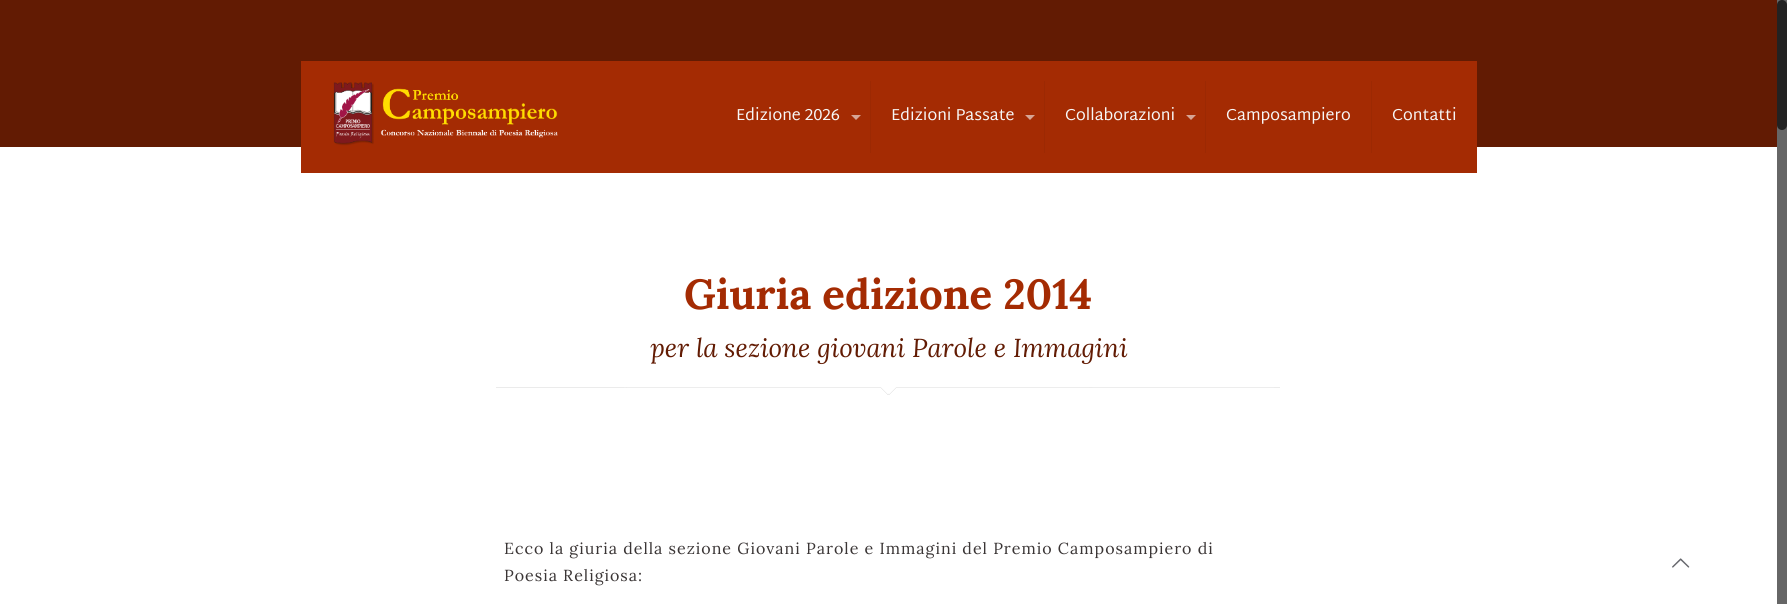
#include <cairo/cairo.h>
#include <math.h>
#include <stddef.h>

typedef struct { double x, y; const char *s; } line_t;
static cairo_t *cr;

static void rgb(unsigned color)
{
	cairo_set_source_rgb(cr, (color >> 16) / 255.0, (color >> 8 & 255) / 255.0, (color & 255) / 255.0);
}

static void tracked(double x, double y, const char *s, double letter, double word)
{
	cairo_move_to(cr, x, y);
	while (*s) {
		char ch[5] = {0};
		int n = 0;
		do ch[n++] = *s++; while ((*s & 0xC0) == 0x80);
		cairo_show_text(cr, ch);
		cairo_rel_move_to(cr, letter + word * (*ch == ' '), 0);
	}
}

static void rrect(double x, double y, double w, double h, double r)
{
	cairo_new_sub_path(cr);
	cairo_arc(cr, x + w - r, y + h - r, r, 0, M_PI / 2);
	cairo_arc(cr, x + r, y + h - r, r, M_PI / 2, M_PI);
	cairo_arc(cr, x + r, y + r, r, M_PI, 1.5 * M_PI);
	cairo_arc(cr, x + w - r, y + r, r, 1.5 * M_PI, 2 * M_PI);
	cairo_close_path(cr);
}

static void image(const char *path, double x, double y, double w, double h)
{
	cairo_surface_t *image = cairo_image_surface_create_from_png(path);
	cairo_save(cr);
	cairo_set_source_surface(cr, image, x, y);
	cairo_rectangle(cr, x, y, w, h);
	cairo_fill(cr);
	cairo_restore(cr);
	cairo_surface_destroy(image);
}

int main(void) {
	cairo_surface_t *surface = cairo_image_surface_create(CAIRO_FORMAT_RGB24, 1787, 604);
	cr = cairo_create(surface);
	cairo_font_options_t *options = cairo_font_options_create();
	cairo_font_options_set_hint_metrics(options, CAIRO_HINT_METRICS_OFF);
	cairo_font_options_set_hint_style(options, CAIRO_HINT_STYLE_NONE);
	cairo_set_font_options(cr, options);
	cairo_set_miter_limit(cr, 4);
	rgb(0xffffff);
	cairo_paint(cr);
	rgb(0x621b03);
	cairo_rectangle(cr, 0, 0, 1777, 147);
	cairo_fill(cr);
	rgb(0xa42b03);
	cairo_rectangle(cr, 301, 61, 1176, 112);
	cairo_fill(cr);
	image("img/1.png", 333, 82, 225, 64);
	rgb(0x9c2903);
	cairo_rectangle(cr, 870, 81, 1, 72);
	cairo_fill(cr);
	rgb(0xd6a595);
	cairo_new_path(cr);
	cairo_move_to(cr, 851, 115);
	cairo_line_to(cr, 861, 115);
	cairo_line_to(cr, 856, 120);
	cairo_close_path(cr);
	cairo_fill(cr);
	rgb(0x9c2903);
	cairo_rectangle(cr, 1044, 81, 1, 72);
	cairo_fill(cr);
	rgb(0xd6a595);
	cairo_new_path(cr);
	cairo_move_to(cr, 1025, 115);
	cairo_line_to(cr, 1035, 115);
	cairo_line_to(cr, 1030, 120);
	cairo_close_path(cr);
	cairo_fill(cr);
	rgb(0x9c2903);
	cairo_rectangle(cr, 1205, 81, 1, 72);
	cairo_fill(cr);
	rgb(0xd6a595);
	cairo_new_path(cr);
	cairo_move_to(cr, 1186, 115);
	cairo_line_to(cr, 1196, 115);
	cairo_line_to(cr, 1191, 120);
	cairo_close_path(cr);
	cairo_fill(cr);
	rgb(0x9c2903);
	cairo_rectangle(cr, 1371, 81, 1, 72);
	cairo_fill(cr);
	image("img/2.png", 496, 387, 784, 8);
	image("img/3.png", 1672, 558, 18, 10);
	rgb(0x666666);
	cairo_rectangle(cr, 1777, 0, 10, 604);
	cairo_fill(cr);
	rgb(0x222222);
	rrect(1777, 0, 10, 130, 5);
	cairo_fill(cr);
	cairo_select_font_face(cr, "Martel Sans", CAIRO_FONT_SLANT_NORMAL, CAIRO_FONT_WEIGHT_NORMAL);
	cairo_set_font_size(cr, 16);
	rgb(0xf7f7f7);
	{
		static const line_t items[] = {
			{736, 120, "Edizione 2026"},
			{891, 120, "Edizioni Passate"},
			{1065, 120, "Collaborazioni"},
			{1226, 120, "Camposampiero"},
			{1392, 120, "Contatti"},
		};
		for (size_t i = 0; i < sizeof items / sizeof *items; i++) {
			cairo_move_to(cr, items[i].x, items[i].y);
			cairo_show_text(cr, items[i].s);
		}
	}
	cairo_select_font_face(cr, "Lora", CAIRO_FONT_SLANT_NORMAL, CAIRO_FONT_WEIGHT_BOLD);
	cairo_set_font_size(cr, 42);
	rgb(0xa42b03);
	cairo_move_to(cr, 684, 309);
	cairo_show_text(cr, "Giuria edizione 2014");
	cairo_select_font_face(cr, "Lora", CAIRO_FONT_SLANT_ITALIC, CAIRO_FONT_WEIGHT_NORMAL);
	cairo_set_font_size(cr, 26);
	rgb(0x621b03);
	cairo_move_to(cr, 650, 357);
	cairo_show_text(cr, "per la sezione giovani Parole e Immagini");
	cairo_select_font_face(cr, "Lora", CAIRO_FONT_SLANT_NORMAL, CAIRO_FONT_WEIGHT_NORMAL);
	cairo_set_font_size(cr, 16);
	rgb(0x3a3535);
	tracked(504, 554, "Ecco la giuria della sezione Giovani Parole e Immagini del Premio Camposampiero di", 1, 0);
	tracked(504, 581, "Poesia Religiosa:", 1, 0);
	cairo_surface_write_to_png(surface, "page.png");
	cairo_font_options_destroy(options);
	cairo_destroy(cr);
	cairo_surface_destroy(surface);
	return 0;
}
